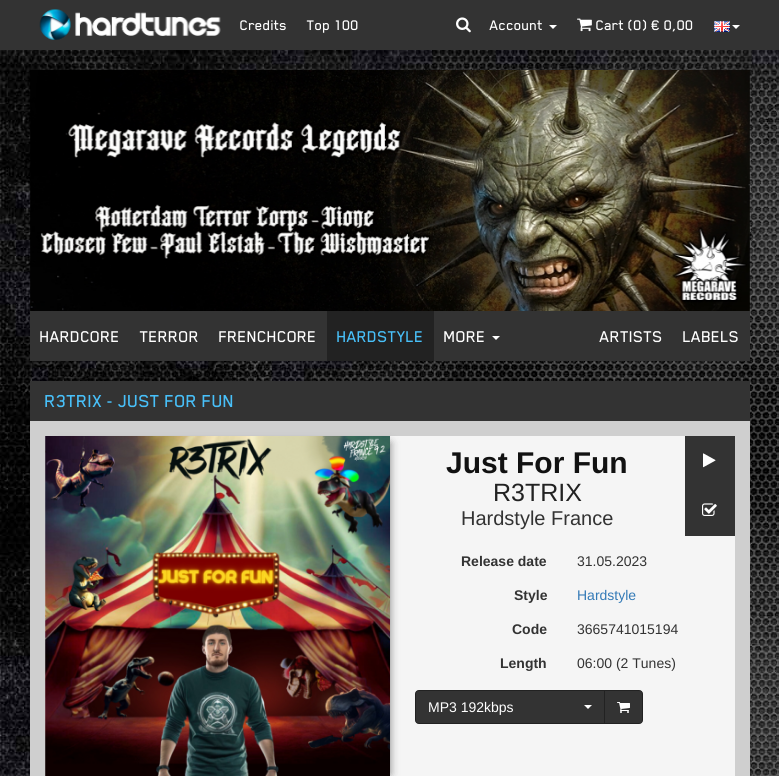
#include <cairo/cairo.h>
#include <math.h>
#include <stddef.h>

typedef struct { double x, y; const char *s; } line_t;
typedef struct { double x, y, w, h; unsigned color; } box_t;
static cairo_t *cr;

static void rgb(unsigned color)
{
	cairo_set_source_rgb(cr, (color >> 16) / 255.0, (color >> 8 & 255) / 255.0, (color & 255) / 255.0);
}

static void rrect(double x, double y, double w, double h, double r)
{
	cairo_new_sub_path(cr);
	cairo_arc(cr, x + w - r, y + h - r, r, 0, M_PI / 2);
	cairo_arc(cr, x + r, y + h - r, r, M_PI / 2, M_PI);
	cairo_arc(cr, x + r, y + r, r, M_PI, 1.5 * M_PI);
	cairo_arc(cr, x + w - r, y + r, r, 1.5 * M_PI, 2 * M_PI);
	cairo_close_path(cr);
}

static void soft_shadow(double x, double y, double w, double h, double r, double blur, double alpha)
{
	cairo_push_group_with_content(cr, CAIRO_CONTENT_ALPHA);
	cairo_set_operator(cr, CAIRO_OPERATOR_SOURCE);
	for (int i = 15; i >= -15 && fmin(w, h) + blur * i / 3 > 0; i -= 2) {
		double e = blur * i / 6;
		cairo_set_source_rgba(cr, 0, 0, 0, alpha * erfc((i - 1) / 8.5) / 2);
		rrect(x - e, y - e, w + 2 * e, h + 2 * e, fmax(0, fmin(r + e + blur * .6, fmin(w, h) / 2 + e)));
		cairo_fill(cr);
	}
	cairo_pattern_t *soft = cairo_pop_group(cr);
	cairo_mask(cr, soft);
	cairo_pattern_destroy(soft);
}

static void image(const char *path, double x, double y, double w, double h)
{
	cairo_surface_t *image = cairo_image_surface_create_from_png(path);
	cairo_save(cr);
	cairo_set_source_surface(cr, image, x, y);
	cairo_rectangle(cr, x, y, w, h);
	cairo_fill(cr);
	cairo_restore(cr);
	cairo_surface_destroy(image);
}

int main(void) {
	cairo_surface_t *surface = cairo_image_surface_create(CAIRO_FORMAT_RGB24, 779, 776);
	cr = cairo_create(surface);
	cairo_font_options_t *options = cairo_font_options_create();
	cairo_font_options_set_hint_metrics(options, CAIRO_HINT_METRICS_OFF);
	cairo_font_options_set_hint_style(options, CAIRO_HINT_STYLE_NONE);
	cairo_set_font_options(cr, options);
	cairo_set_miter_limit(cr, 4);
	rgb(0xffffff);
	cairo_paint(cr);
	image("img/1.png", 0, 50, 779, 726);
	rgb(0x333333);
	cairo_rectangle(cr, 0, 0, 779, 50);
	cairo_fill(cr);
	image("img/2.png", 39, 9, 182, 31);
	image("img/3.png", 456, 17, 15, 16);
	rgb(0xffffff);
	cairo_new_path(cr);
	cairo_move_to(cr, 549, 25);
	cairo_line_to(cr, 557, 25);
	cairo_line_to(cr, 553, 29);
	cairo_close_path(cr);
	cairo_fill(cr);
	image("img/4.png", 577, 18, 15, 14);
	image("img/5.png", 714, 21, 16, 11);
	cairo_new_path(cr);
	cairo_move_to(cr, 732, 25);
	cairo_line_to(cr, 740, 25);
	cairo_line_to(cr, 736, 29);
	cairo_close_path(cr);
	cairo_fill(cr);
	image("img/6.png", 30, 70, 720, 241);
	rgb(0x333333);
	cairo_rectangle(cr, 30, 311, 720, 50);
	cairo_fill(cr);
	rgb(0x222222);
	cairo_rectangle(cr, 327, 311, 107, 50);
	cairo_fill(cr);
	rgb(0xffffff);
	cairo_new_path(cr);
	cairo_move_to(cr, 492, 336);
	cairo_line_to(cr, 500, 336);
	cairo_line_to(cr, 496, 340);
	cairo_close_path(cr);
	cairo_fill(cr);
	{
		static const box_t items[] = {
			{30, 381, 720, 40, 0x333333},
			{30, 421, 720, 355, 0xcfcfcf},
			{390, 436, 345, 340, 0xf5f5f5},
		};
		for (size_t i = 0; i < sizeof items / sizeof *items; i++) {
			rgb(items[i].color);
			cairo_rectangle(cr, items[i].x, items[i].y, items[i].w, items[i].h);
			cairo_fill(cr);
		}
	}
	rgb(0x111111);
	soft_shadow(59, 443, 331, 331, 0, 4.5, 0.5);
	image("img/7.png", 45, 436, 345, 340);
	rgb(0x333333);
	cairo_rectangle(cr, 685, 436, 50, 100);
	cairo_fill(cr);
	image("img/8.png", 703, 453, 13, 15);
	image("img/9.png", 702, 503, 15, 13);
	cairo_new_path(cr);
	cairo_move_to(cr, 419, 690.5);
	cairo_line_to(cr, 604.5, 690.5);
	cairo_line_to(cr, 604.5, 723.5);
	cairo_line_to(cr, 419, 723.5);
	cairo_curve_to(cr, 417, 723.5, 415.5, 722, 415.5, 720);
	cairo_line_to(cr, 415.5, 694);
	cairo_curve_to(cr, 415.5, 692, 417, 690.5, 419, 690.5);
	cairo_close_path(cr);
	cairo_fill_preserve(cr);
	rgb(0x222222);
	cairo_set_line_width(cr, 1);
	cairo_stroke(cr);
	rgb(0xffffff);
	cairo_new_path(cr);
	cairo_move_to(cr, 584, 705);
	cairo_line_to(cr, 592, 705);
	cairo_line_to(cr, 588, 709);
	cairo_close_path(cr);
	cairo_fill(cr);
	rgb(0x333333);
	cairo_new_path(cr);
	cairo_move_to(cr, 604.5, 690.5);
	cairo_line_to(cr, 639, 690.5);
	cairo_curve_to(cr, 641, 690.5, 642.5, 692, 642.5, 694);
	cairo_line_to(cr, 642.5, 720);
	cairo_curve_to(cr, 642.5, 722, 641, 723.5, 639, 723.5);
	cairo_line_to(cr, 604.5, 723.5);
	cairo_close_path(cr);
	cairo_fill_preserve(cr);
	rgb(0x222222);
	cairo_stroke(cr);
	image("img/10.png", 617, 702, 13, 11);
	cairo_select_font_face(cr, "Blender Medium", CAIRO_FONT_SLANT_NORMAL, CAIRO_FONT_WEIGHT_NORMAL);
	cairo_set_font_size(cr, 16);
	rgb(0xffffff);
	{
		static const line_t items[] = {
			{240, 30, "Credits"},
			{307, 30, "Top 100"},
			{490, 30, "Account"},
			{596, 30, "Cart (0) € 0,00"},
		};
		for (size_t i = 0; i < sizeof items / sizeof *items; i++) {
			cairo_move_to(cr, items[i].x, items[i].y);
			cairo_show_text(cr, items[i].s);
		}
	}
	cairo_set_font_size(cr, 18);
	{
		static const line_t items[] = {
			{40, 342, "HARDCORE"},
			{140, 342, "TERROR"},
			{219, 342, "FRENCHCORE"},
		};
		for (size_t i = 0; i < sizeof items / sizeof *items; i++) {
			cairo_move_to(cr, items[i].x, items[i].y);
			cairo_show_text(cr, items[i].s);
		}
	}
	rgb(0x48c0f9);
	cairo_move_to(cr, 337, 342);
	cairo_show_text(cr, "HARDSTYLE");
	rgb(0xffffff);
	{
		static const line_t items[] = {
			{444, 342, "MORE"},
			{600, 342, "ARTISTS"},
			{683, 342, "LABELS"},
		};
		for (size_t i = 0; i < sizeof items / sizeof *items; i++) {
			cairo_move_to(cr, items[i].x, items[i].y);
			cairo_show_text(cr, items[i].s);
		}
	}
	cairo_set_font_size(cr, 20);
	rgb(0x48c0f9);
	cairo_move_to(cr, 45, 407);
	cairo_show_text(cr, "R3TRIX - JUST FOR FUN");
	cairo_select_font_face(cr, "Liberation Sans", CAIRO_FONT_SLANT_NORMAL, CAIRO_FONT_WEIGHT_BOLD);
	cairo_set_font_size(cr, 30);
	rgb(0x111111);
	cairo_move_to(cr, 446, 473);
	cairo_show_text(cr, "Just For Fun");
	cairo_select_font_face(cr, "Liberation Sans", CAIRO_FONT_SLANT_NORMAL, CAIRO_FONT_WEIGHT_NORMAL);
	cairo_set_font_size(cr, 25);
	rgb(0x222222);
	cairo_move_to(cr, 493, 501);
	cairo_show_text(cr, "R3TRIX");
	cairo_set_font_size(cr, 20);
	rgb(0x333333);
	cairo_move_to(cr, 461, 525);
	cairo_show_text(cr, "Hardstyle France");
	cairo_select_font_face(cr, "Liberation Sans", CAIRO_FONT_SLANT_NORMAL, CAIRO_FONT_WEIGHT_BOLD);
	cairo_set_font_size(cr, 14);
	cairo_move_to(cr, 461, 566);
	cairo_show_text(cr, "Release date");
	cairo_select_font_face(cr, "Liberation Sans", CAIRO_FONT_SLANT_NORMAL, CAIRO_FONT_WEIGHT_NORMAL);
	cairo_move_to(cr, 577, 566);
	cairo_show_text(cr, "31.05.2023");
	cairo_select_font_face(cr, "Liberation Sans", CAIRO_FONT_SLANT_NORMAL, CAIRO_FONT_WEIGHT_BOLD);
	cairo_move_to(cr, 514, 600);
	cairo_show_text(cr, "Style");
	cairo_select_font_face(cr, "Liberation Sans", CAIRO_FONT_SLANT_NORMAL, CAIRO_FONT_WEIGHT_NORMAL);
	rgb(0x337ab7);
	cairo_move_to(cr, 577, 600);
	cairo_show_text(cr, "Hardstyle");
	cairo_select_font_face(cr, "Liberation Sans", CAIRO_FONT_SLANT_NORMAL, CAIRO_FONT_WEIGHT_BOLD);
	rgb(0x333333);
	cairo_move_to(cr, 512, 634);
	cairo_show_text(cr, "Code");
	cairo_select_font_face(cr, "Liberation Sans", CAIRO_FONT_SLANT_NORMAL, CAIRO_FONT_WEIGHT_NORMAL);
	cairo_move_to(cr, 577, 634);
	cairo_show_text(cr, "3665741015194");
	cairo_select_font_face(cr, "Liberation Sans", CAIRO_FONT_SLANT_NORMAL, CAIRO_FONT_WEIGHT_BOLD);
	cairo_move_to(cr, 500, 668);
	cairo_show_text(cr, "Length");
	cairo_select_font_face(cr, "Liberation Sans", CAIRO_FONT_SLANT_NORMAL, CAIRO_FONT_WEIGHT_NORMAL);
	cairo_move_to(cr, 577, 668);
	cairo_show_text(cr, "06:00 (2 Tunes)");
	rgb(0xffffff);
	cairo_move_to(cr, 428, 712);
	cairo_show_text(cr, "MP3 192kbps");
	cairo_surface_write_to_png(surface, "page.png");
	cairo_font_options_destroy(options);
	cairo_destroy(cr);
	cairo_surface_destroy(surface);
	return 0;
}
